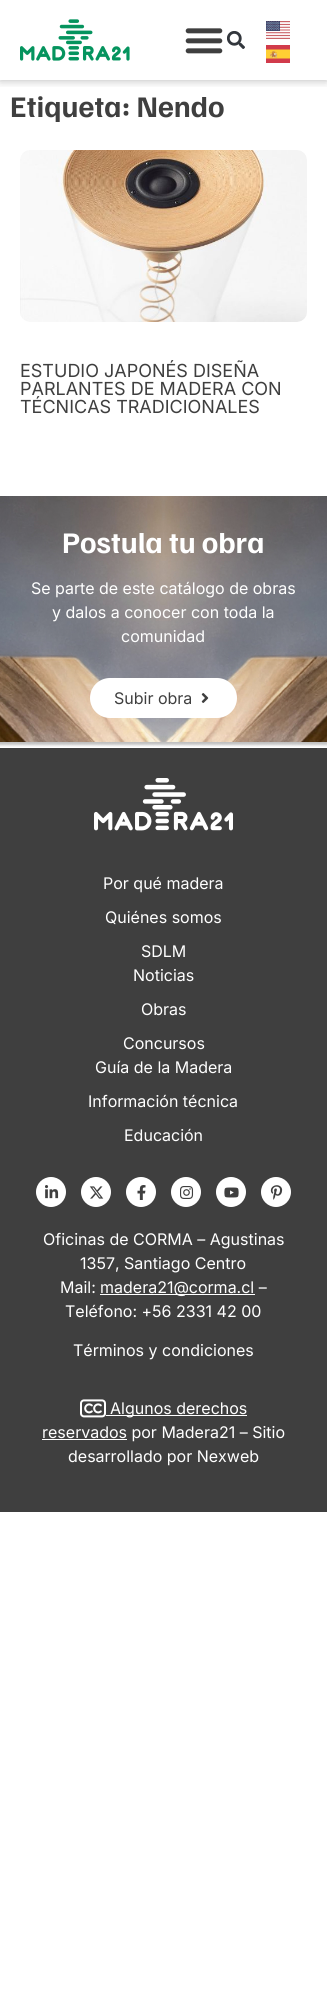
#include <cairo/cairo.h>
#include <math.h>
#include <stddef.h>

typedef struct { double x, y; const char *s; } line_t;
static cairo_t *cr;

static void rgb(unsigned color)
{
	cairo_set_source_rgb(cr, (color >> 16) / 255.0, (color >> 8 & 255) / 255.0, (color & 255) / 255.0);
}

static void rrect(double x, double y, double w, double h, double r)
{
	cairo_new_sub_path(cr);
	cairo_arc(cr, x + w - r, y + h - r, r, 0, M_PI / 2);
	cairo_arc(cr, x + r, y + h - r, r, M_PI / 2, M_PI);
	cairo_arc(cr, x + r, y + r, r, M_PI, 1.5 * M_PI);
	cairo_arc(cr, x + w - r, y + r, r, 1.5 * M_PI, 2 * M_PI);
	cairo_close_path(cr);
}

static void soft_shadow(double x, double y, double w, double h, double r, double blur, double alpha)
{
	cairo_push_group_with_content(cr, CAIRO_CONTENT_ALPHA);
	cairo_set_operator(cr, CAIRO_OPERATOR_SOURCE);
	for (int i = 15; i >= -15 && fmin(w, h) + blur * i / 3 > 0; i -= 2) {
		double e = blur * i / 6;
		cairo_set_source_rgba(cr, 0, 0, 0, alpha * erfc((i - 1) / 8.5) / 2);
		rrect(x - e, y - e, w + 2 * e, h + 2 * e, fmax(0, fmin(r + e + blur * .6, fmin(w, h) / 2 + e)));
		cairo_fill(cr);
	}
	cairo_pattern_t *soft = cairo_pop_group(cr);
	cairo_mask(cr, soft);
	cairo_pattern_destroy(soft);
}

static void image(const char *path, double x, double y, double w, double h)
{
	cairo_surface_t *image = cairo_image_surface_create_from_png(path);
	cairo_save(cr);
	cairo_set_source_surface(cr, image, x, y);
	cairo_rectangle(cr, x, y, w, h);
	cairo_fill(cr);
	cairo_restore(cr);
	cairo_surface_destroy(image);
}

int main(void) {
	cairo_surface_t *surface = cairo_image_surface_create(CAIRO_FORMAT_RGB24, 327, 1996);
	cr = cairo_create(surface);
	cairo_font_options_t *options = cairo_font_options_create();
	cairo_font_options_set_hint_metrics(options, CAIRO_HINT_METRICS_OFF);
	cairo_font_options_set_hint_style(options, CAIRO_HINT_STYLE_NONE);
	cairo_set_font_options(cr, options);
	cairo_set_miter_limit(cr, 4);
	rgb(0xffffff);
	cairo_paint(cr);
	cairo_save(cr);
	cairo_rectangle(cr, 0, 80, 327, 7);
	cairo_clip(cr);
	rgb(0x000000);
	soft_shadow(0, 0, 327, 80, 0, 5, 0.29);
	cairo_restore(cr);
	image("img/1.png", 20, 19, 110, 42);
	image("img/2.png", 185, 28, 38, 26);
	image("img/3.png", 227, 31, 18, 18);
	image("img/4.png", 266, 21, 24, 18);
	image("img/5.png", 266, 45, 24, 18);
	image("img/6.png", 20, 150, 287, 172);
	image("img/7.png", 0, 496, 327, 251);
	rgb(0xffffff);
	rrect(90, 678, 147, 40, 20);
	cairo_fill(cr);
	image("img/8.png", 201, 693, 8, 10);
	rgb(0x3f3f3f);
	cairo_rectangle(cr, 0, 748, 327, 764);
	cairo_fill(cr);
	image("img/9.png", 94, 778, 139, 53);
	rgb(0xffffff);
	cairo_arc(cr, 51, 1192, 15, 0, 2 * M_PI);
	cairo_fill(cr);
	image("img/10.png", 45, 1185, 14, 14);
	cairo_arc(cr, 96, 1192, 15, 0, 2 * M_PI);
	cairo_fill(cr);
	image("img/11.png", 89, 1186, 15, 13);
	cairo_arc(cr, 141, 1192, 15, 0, 2 * M_PI);
	cairo_fill(cr);
	image("img/12.png", 137, 1185, 9, 15);
	cairo_arc(cr, 186, 1192, 15, 0, 2 * M_PI);
	cairo_fill(cr);
	image("img/13.png", 180, 1186, 14, 13);
	cairo_arc(cr, 231, 1192, 15, 0, 2 * M_PI);
	cairo_fill(cr);
	image("img/14.png", 224, 1187, 15, 11);
	cairo_arc(cr, 276, 1192, 15, 0, 2 * M_PI);
	cairo_fill(cr);
	image("img/15.png", 270, 1185, 13, 15);
	cairo_rectangle(cr, 100, 1294, 155, 1);
	cairo_fill(cr);
	image("img/16.png", 80, 1399, 26, 19);
	cairo_rectangle(cr, 106, 1415, 141, 1);
	cairo_fill(cr);
	cairo_rectangle(cr, 42, 1439, 85, 1);
	cairo_fill(cr);
	cairo_select_font_face(cr, "Familjen Grotesk", CAIRO_FONT_SLANT_NORMAL, CAIRO_FONT_WEIGHT_BOLD);
	cairo_set_font_size(cr, 30);
	rgb(0x3f3f3f);
	cairo_move_to(cr, 10, 117);
	cairo_show_text(cr, "Etiqueta: Nendo");
	cairo_select_font_face(cr, "Inter", CAIRO_FONT_SLANT_NORMAL, CAIRO_FONT_WEIGHT_NORMAL);
	cairo_set_font_size(cr, 18);
	{
		static const line_t items[] = {
			{20, 377, "ESTUDIO JAPONÉS DISEÑA"},
			{20, 395, "PARLANTES DE MADERA CON"},
			{20, 413, "TÉCNICAS TRADICIONALES"},
		};
		for (size_t i = 0; i < sizeof items / sizeof *items; i++) {
			cairo_move_to(cr, items[i].x, items[i].y);
			cairo_show_text(cr, items[i].s);
		}
	}
	cairo_select_font_face(cr, "Familjen Grotesk", CAIRO_FONT_SLANT_NORMAL, CAIRO_FONT_WEIGHT_BOLD);
	cairo_set_font_size(cr, 30);
	rgb(0xffffff);
	cairo_move_to(cr, 62, 553);
	cairo_show_text(cr, "Postula tu obra");
	cairo_select_font_face(cr, "Inter", CAIRO_FONT_SLANT_NORMAL, CAIRO_FONT_WEIGHT_NORMAL);
	cairo_set_font_size(cr, 16);
	{
		static const line_t items[] = {
			{31, 594, "Se parte de este catálogo de obras"},
			{52, 618, "y dalos a conocer con toda la"},
			{121, 642, "comunidad"},
		};
		for (size_t i = 0; i < sizeof items / sizeof *items; i++) {
			cairo_move_to(cr, items[i].x, items[i].y);
			cairo_show_text(cr, items[i].s);
		}
	}
	rgb(0x3f3f3f);
	cairo_move_to(cr, 114, 704);
	cairo_show_text(cr, "Subir obra");
	rgb(0xffffff);
	{
		static const line_t items[] = {
			{103, 889, "Por qué madera"},
			{105, 923, "Quiénes somos"},
			{141, 957, "SDLM"},
			{133, 981, "Noticias"},
			{141, 1015, "Obras"},
			{123, 1049, "Concursos"},
			{95, 1073, "Guía de la Madera"},
			{88, 1107, "Información técnica"},
			{124, 1141, "Educación"},
			{43, 1245, "Oficinas de CORMA – Agustinas"},
			{80, 1269, "1357, Santiago Centro"},
			{60, 1293, "Mail:"},
			{100, 1293, "madera21@corma.cl –"},
			{65, 1317, "Teléfono: +56 2331 42 00"},
			{73, 1356, "Términos y condiciones"},
			{110, 1414, "Algunos derechos"},
			{42, 1438, "reservados por Madera21 – Sitio"},
			{68, 1462, "desarrollado por Nexweb"},
		};
		for (size_t i = 0; i < sizeof items / sizeof *items; i++) {
			cairo_move_to(cr, items[i].x, items[i].y);
			cairo_show_text(cr, items[i].s);
		}
	}
	cairo_surface_write_to_png(surface, "page.png");
	cairo_font_options_destroy(options);
	cairo_destroy(cr);
	cairo_surface_destroy(surface);
	return 0;
}
